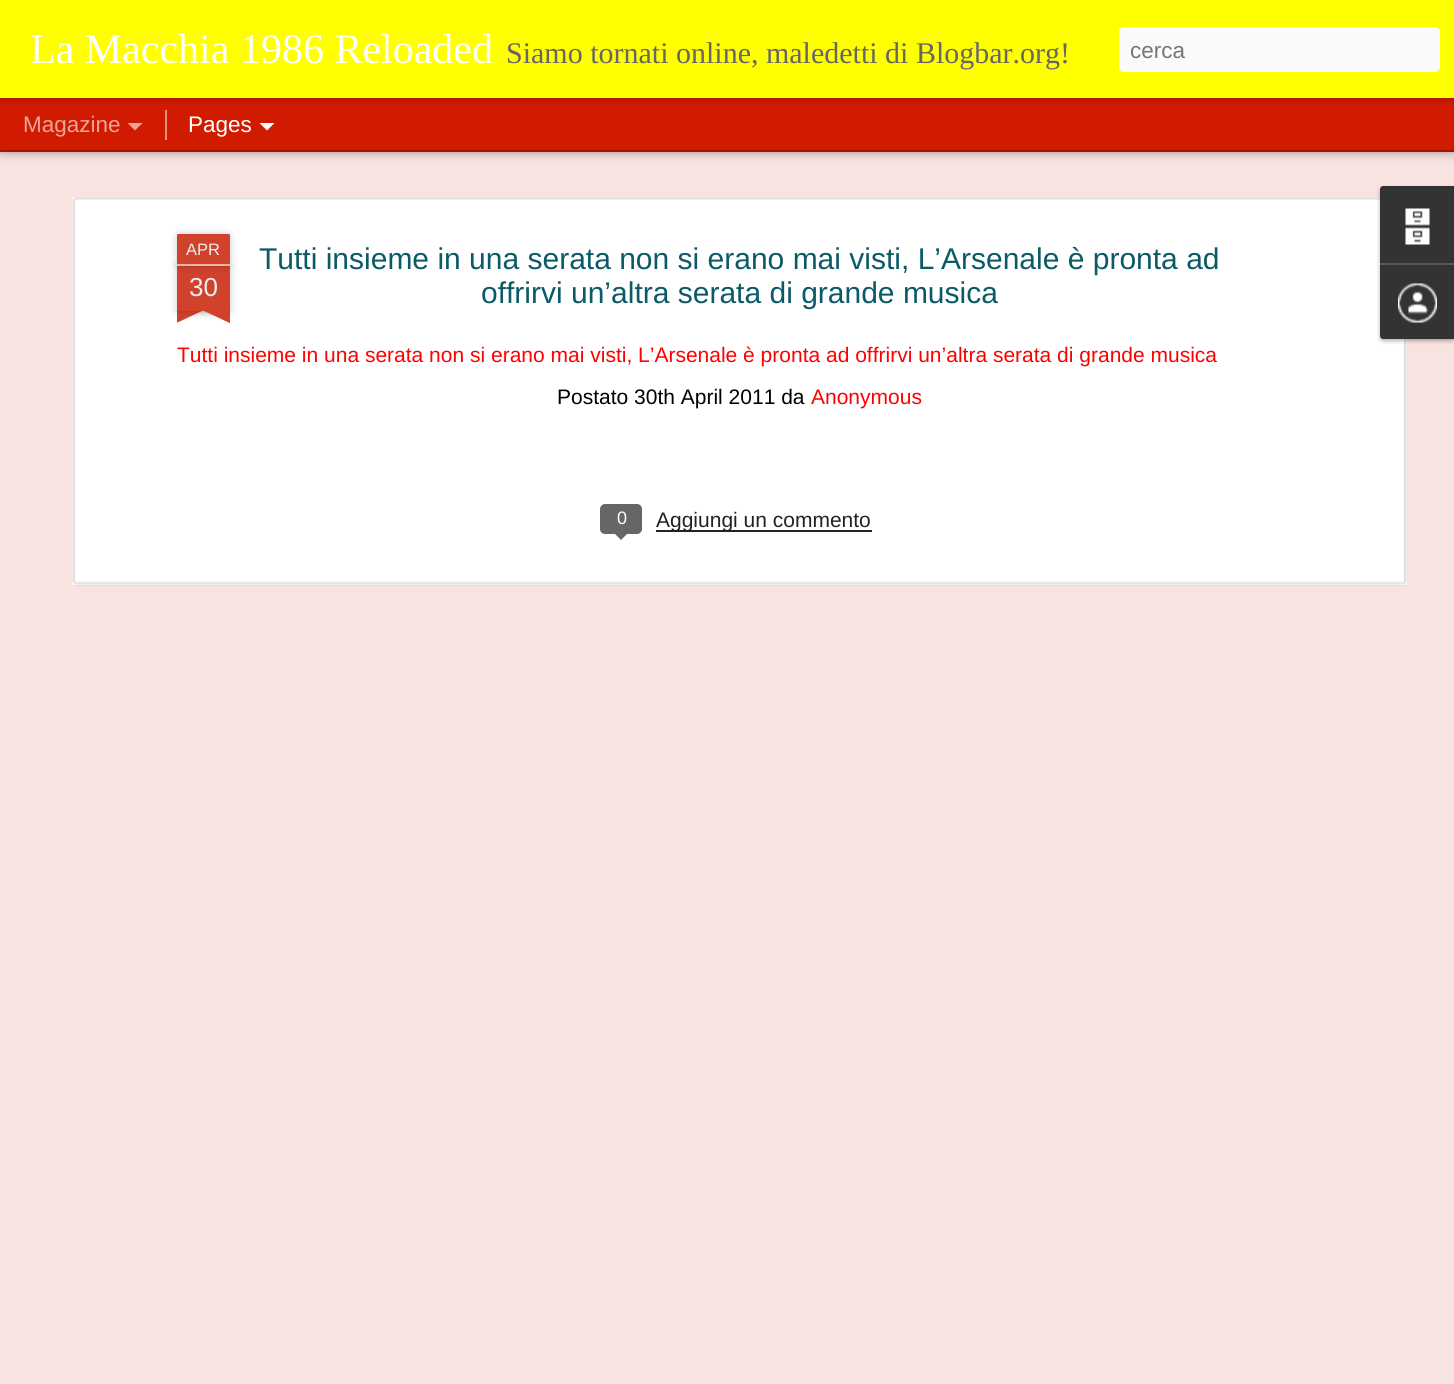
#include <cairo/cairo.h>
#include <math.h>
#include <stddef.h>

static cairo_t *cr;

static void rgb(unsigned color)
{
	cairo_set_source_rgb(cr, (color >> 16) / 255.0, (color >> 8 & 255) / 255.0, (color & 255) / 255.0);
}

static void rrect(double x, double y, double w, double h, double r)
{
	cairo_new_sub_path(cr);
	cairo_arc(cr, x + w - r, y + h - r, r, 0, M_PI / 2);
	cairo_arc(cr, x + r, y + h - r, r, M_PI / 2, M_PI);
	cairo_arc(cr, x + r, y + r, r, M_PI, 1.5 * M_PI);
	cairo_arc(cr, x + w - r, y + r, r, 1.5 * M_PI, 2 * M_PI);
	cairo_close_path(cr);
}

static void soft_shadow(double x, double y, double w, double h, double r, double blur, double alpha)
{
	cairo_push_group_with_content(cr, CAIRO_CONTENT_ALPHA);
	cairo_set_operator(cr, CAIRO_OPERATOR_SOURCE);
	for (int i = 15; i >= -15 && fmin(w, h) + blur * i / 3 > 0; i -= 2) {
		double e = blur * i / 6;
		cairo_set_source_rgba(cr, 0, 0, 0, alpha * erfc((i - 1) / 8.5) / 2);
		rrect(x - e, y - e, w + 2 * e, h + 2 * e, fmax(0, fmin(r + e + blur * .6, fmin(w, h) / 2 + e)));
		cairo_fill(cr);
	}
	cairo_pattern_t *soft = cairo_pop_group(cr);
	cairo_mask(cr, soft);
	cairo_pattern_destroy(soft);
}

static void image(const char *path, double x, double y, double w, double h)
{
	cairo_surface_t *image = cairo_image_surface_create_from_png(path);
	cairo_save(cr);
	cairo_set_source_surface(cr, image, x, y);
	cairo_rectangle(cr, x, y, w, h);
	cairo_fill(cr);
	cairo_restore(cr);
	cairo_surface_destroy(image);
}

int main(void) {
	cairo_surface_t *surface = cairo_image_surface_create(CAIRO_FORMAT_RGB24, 1454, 1384);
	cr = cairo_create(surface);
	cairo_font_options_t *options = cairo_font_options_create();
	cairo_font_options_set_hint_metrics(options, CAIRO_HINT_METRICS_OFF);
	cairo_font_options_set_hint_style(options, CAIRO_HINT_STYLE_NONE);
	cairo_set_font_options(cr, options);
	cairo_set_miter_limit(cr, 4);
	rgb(0xd01b00);
	cairo_paint(cr);
	rgb(0xf8e3e0);
	cairo_rectangle(cr, 0, 152, 1454, 1232);
	cairo_fill(cr);
	rgb(0x000000);
	soft_shadow(0, 98, 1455, 52, 0, 6, 0.5);
	rgb(0xd01b00);
	cairo_rectangle(cr, 0, 98, 1454, 52);
	cairo_fill(cr);
	rgb(0xe88d80);
	cairo_rectangle(cr, 165, 110, 2, 30);
	cairo_fill(cr);
	rgb(0x000000);
	soft_shadow(0, 0, 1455, 98, 0, 4, 0.3);
	rgb(0xffff00);
	cairo_rectangle(cr, 0, 0, 1454, 98);
	cairo_fill(cr);
	rgb(0xfafafa);
	rrect(1119, 27, 321, 45, 5);
	cairo_fill(cr);
	rgb(0xeca499);
	cairo_new_path(cr);
	cairo_move_to(cr, 127.5, 123);
	cairo_line_to(cr, 142.5, 123);
	cairo_line_to(cr, 135, 130.5);
	cairo_close_path(cr);
	cairo_fill(cr);
	rgb(0xffffff);
	cairo_new_path(cr);
	cairo_move_to(cr, 259.5, 123);
	cairo_line_to(cr, 274.5, 123);
	cairo_line_to(cr, 267, 130.5);
	cairo_close_path(cr);
	cairo_fill(cr);
	cairo_rectangle(cr, 72, 197, 1335, 388);
	cairo_fill(cr);
	image("img/1.png", 72, 197, 1335, 389);
	rgb(0x000000);
	soft_shadow(177, 266, 53, 45, 0, 4, 0.2);
	rgb(0xd0422c);
	cairo_rectangle(cr, 177, 266, 53, 45);
	cairo_fill(cr);
	rgb(0x000000);
	soft_shadow(177, 234, 53, 32, 1.5, 4, 0.2);
	rgb(0xd0422c);
	cairo_new_path(cr);
	cairo_move_to(cr, 178.5, 234);
	cairo_line_to(cr, 228.5, 234);
	cairo_curve_to(cr, 229.5, 234, 230, 234.5, 230, 235.5);
	cairo_line_to(cr, 230, 266);
	cairo_line_to(cr, 177, 266);
	cairo_line_to(cr, 177, 235.5);
	cairo_curve_to(cr, 177, 234.5, 177.5, 234, 178.5, 234);
	cairo_close_path(cr);
	cairo_fill(cr);
	rgb(0xecb3ab);
	cairo_rectangle(cr, 177, 264, 53, 2);
	cairo_fill(cr);
	cairo_save(cr);
	cairo_rectangle(cr, 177, 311, 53, 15);
	cairo_clip(cr);
	rgb(0x000000);
	soft_shadow(164, 296, 75, 15, 0, 4, 0.2);
	cairo_restore(cr);
	cairo_save(cr);
	cairo_rectangle(cr, 177, 311, 53, 15);
	cairo_clip(cr);
	rgb(0xd0422c);
	cairo_new_path(cr);
	cairo_move_to(cr, 164, 312);
	cairo_line_to(cr, 232, 280);
	cairo_line_to(cr, 238, 294);
	cairo_line_to(cr, 170, 326);
	cairo_close_path(cr);
	cairo_fill(cr);
	cairo_restore(cr);
	cairo_save(cr);
	cairo_rectangle(cr, 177, 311, 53, 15);
	cairo_clip(cr);
	rgb(0x000000);
	soft_shadow(168, 296, 75, 15, 0, 4, 0.2);
	cairo_restore(cr);
	cairo_save(cr);
	cairo_rectangle(cr, 177, 311, 53, 15);
	cairo_clip(cr);
	rgb(0xd0422c);
	cairo_new_path(cr);
	cairo_move_to(cr, 175, 280);
	cairo_line_to(cr, 243, 312);
	cairo_line_to(cr, 236, 326);
	cairo_line_to(cr, 168, 294);
	cairo_close_path(cr);
	cairo_fill(cr);
	cairo_restore(cr);
	rgb(0x666666);
	rrect(601, 505, 40, 28, 4);
	cairo_fill_preserve(cr);
	cairo_stroke(cr);
	cairo_new_path(cr);
	cairo_move_to(cr, 613.5, 532.5);
	cairo_line_to(cr, 628.5, 532.5);
	cairo_line_to(cr, 621, 540);
	cairo_close_path(cr);
	cairo_fill(cr);
	rgb(0x222222);
	cairo_rectangle(cr, 656, 530, 216, 2);
	cairo_fill(cr);
	rgb(0x000000);
	soft_shadow(1380, 188, 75, 153, 3, 2, 0.3);
	rgb(0x333333);
	cairo_new_path(cr);
	cairo_move_to(cr, 1383, 186);
	cairo_line_to(cr, 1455, 186);
	cairo_line_to(cr, 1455, 263);
	cairo_line_to(cr, 1380, 263);
	cairo_line_to(cr, 1380, 189);
	cairo_curve_to(cr, 1380, 187.5, 1381.5, 186, 1383, 186);
	cairo_close_path(cr);
	cairo_fill(cr);
	image("img/2.png", 1405, 208, 25, 37);
	cairo_new_path(cr);
	cairo_move_to(cr, 1380, 263);
	cairo_line_to(cr, 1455, 263);
	cairo_line_to(cr, 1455, 339);
	cairo_line_to(cr, 1383, 339);
	cairo_curve_to(cr, 1381.5, 339, 1380, 337.5, 1380, 336);
	cairo_close_path(cr);
	cairo_fill(cr);
	rgb(0x585858);
	cairo_rectangle(cr, 1380, 263, 74, 2);
	cairo_fill(cr);
	image("img/3.png", 1398, 283, 39, 40);
	cairo_select_font_face(cr, "Liberation Serif", CAIRO_FONT_SLANT_NORMAL, CAIRO_FONT_WEIGHT_NORMAL);
	cairo_set_font_size(cr, 42);
	rgb(0xffffff);
	cairo_move_to(cr, 30, 63);
	cairo_show_text(cr, "La Macchia 1986 Reloaded");
	cairo_set_font_size(cr, 30);
	rgb(0x666666);
	cairo_move_to(cr, 506, 63);
	cairo_show_text(cr, "Siamo tornati online, maledetti di Blogbar.org!");
	cairo_select_font_face(cr, "Liberation Sans", CAIRO_FONT_SLANT_NORMAL, CAIRO_FONT_WEIGHT_NORMAL);
	cairo_set_font_size(cr, 22.5);
	rgb(0x757575);
	cairo_move_to(cr, 1130, 58);
	cairo_show_text(cr, "cerca");
	rgb(0xeca499);
	cairo_move_to(cr, 23, 132);
	cairo_show_text(cr, "Magazine");
	rgb(0xffffff);
	cairo_move_to(cr, 188, 132);
	cairo_show_text(cr, "Pages");
	cairo_set_font_size(cr, 16.5);
	rgb(0xeeeeee);
	cairo_move_to(cr, 186, 255);
	cairo_show_text(cr, "APR");
	cairo_set_font_size(cr, 26);
	cairo_move_to(cr, 189, 296);
	cairo_show_text(cr, "30");
	cairo_set_font_size(cr, 30);
	rgb(0x0b5a68);
	cairo_move_to(cr, 259, 269);
	cairo_show_text(cr, "Tutti insieme in una serata non si erano mai visti, L’Arsenale è pronta ad");
	cairo_move_to(cr, 481, 303);
	cairo_show_text(cr, "offrirvi un’altra serata di grande musica");
	cairo_set_font_size(cr, 21);
	rgb(0xff0000);
	cairo_move_to(cr, 177, 362);
	cairo_show_text(cr, "Tutti insieme in una serata non si erano mai visti, L’Arsenale è pronta ad offrirvi un’altra serata di grande musica");
	rgb(0x000000);
	cairo_move_to(cr, 557, 404);
	cairo_show_text(cr, "Postato 30th April 2011 da");
	rgb(0xff0000);
	cairo_move_to(cr, 811, 404);
	cairo_show_text(cr, "Anonymous");
	cairo_set_font_size(cr, 18);
	rgb(0xffffff);
	cairo_move_to(cr, 617, 524);
	cairo_show_text(cr, "0");
	cairo_set_font_size(cr, 21);
	rgb(0x222222);
	cairo_move_to(cr, 656, 527);
	cairo_show_text(cr, "Aggiungi un commento");
	cairo_surface_write_to_png(surface, "page.png");
	cairo_font_options_destroy(options);
	cairo_destroy(cr);
	cairo_surface_destroy(surface);
	return 0;
}
